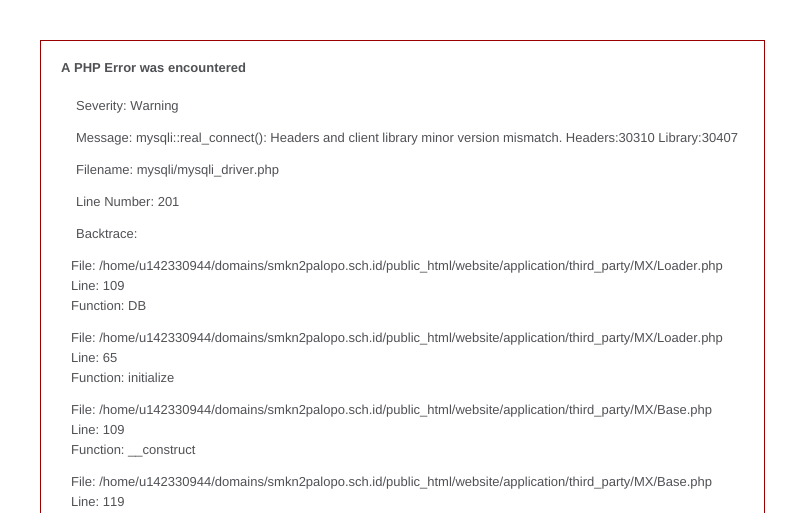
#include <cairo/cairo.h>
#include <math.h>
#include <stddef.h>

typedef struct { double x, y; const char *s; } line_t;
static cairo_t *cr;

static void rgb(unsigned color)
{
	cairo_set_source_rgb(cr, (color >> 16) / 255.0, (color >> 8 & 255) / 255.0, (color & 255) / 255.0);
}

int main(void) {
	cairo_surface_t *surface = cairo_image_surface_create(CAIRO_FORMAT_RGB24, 805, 513);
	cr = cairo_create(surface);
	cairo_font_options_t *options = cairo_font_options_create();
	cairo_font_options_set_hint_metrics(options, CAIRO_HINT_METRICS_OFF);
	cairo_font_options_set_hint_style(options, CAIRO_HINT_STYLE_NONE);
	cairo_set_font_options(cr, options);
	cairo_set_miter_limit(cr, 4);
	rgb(0xffffff);
	cairo_paint(cr);
	cairo_rectangle(cr, 40.5, 40.5, 724, 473);
	rgb(0x990000);
	cairo_set_line_width(cr, 1);
	cairo_stroke(cr);
	cairo_select_font_face(cr, "Liberation Sans", CAIRO_FONT_SLANT_NORMAL, CAIRO_FONT_WEIGHT_BOLD);
	cairo_set_font_size(cr, 13);
	rgb(0x4f5155);
	cairo_move_to(cr, 61, 72);
	cairo_show_text(cr, "A PHP Error was encountered");
	cairo_select_font_face(cr, "Liberation Sans", CAIRO_FONT_SLANT_NORMAL, CAIRO_FONT_WEIGHT_NORMAL);
	{
		static const line_t items[] = {
			{76, 110, "Severity: Warning"},
			{76, 142, "Message: mysqli::real_connect(): Headers and client library minor version mismatch. Headers:30310 Library:30407"},
			{76, 174, "Filename: mysqli/mysqli_driver.php"},
			{76, 206, "Line Number: 201"},
			{76, 238, "Backtrace:"},
			{71, 270, "File: /home/u142330944/domains/smkn2palopo.sch.id/public_html/website/application/third_party/MX/Loader.php"},
			{71, 290, "Line: 109"},
			{71, 310, "Function: DB"},
			{71, 342, "File: /home/u142330944/domains/smkn2palopo.sch.id/public_html/website/application/third_party/MX/Loader.php"},
			{71, 362, "Line: 65"},
			{71, 382, "Function: initialize"},
			{71, 414, "File: /home/u142330944/domains/smkn2palopo.sch.id/public_html/website/application/third_party/MX/Base.php"},
			{71, 434, "Line: 109"},
			{71, 454, "Function: __construct"},
			{71, 486, "File: /home/u142330944/domains/smkn2palopo.sch.id/public_html/website/application/third_party/MX/Base.php"},
			{71, 506, "Line: 119"},
		};
		for (size_t i = 0; i < sizeof items / sizeof *items; i++) {
			cairo_move_to(cr, items[i].x, items[i].y);
			cairo_show_text(cr, items[i].s);
		}
	}
	cairo_surface_write_to_png(surface, "page.png");
	cairo_font_options_destroy(options);
	cairo_destroy(cr);
	cairo_surface_destroy(surface);
	return 0;
}
